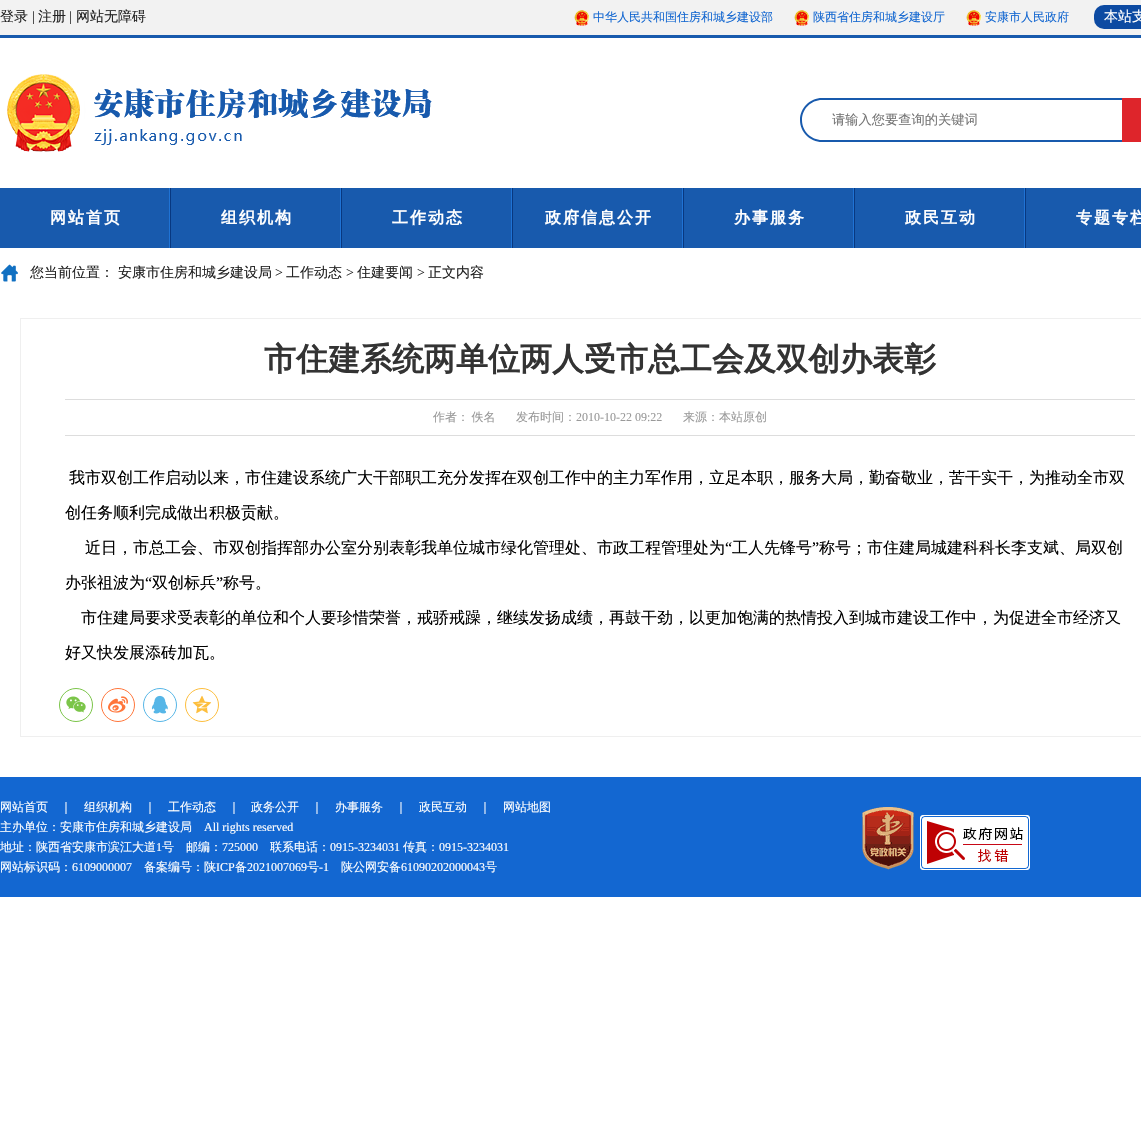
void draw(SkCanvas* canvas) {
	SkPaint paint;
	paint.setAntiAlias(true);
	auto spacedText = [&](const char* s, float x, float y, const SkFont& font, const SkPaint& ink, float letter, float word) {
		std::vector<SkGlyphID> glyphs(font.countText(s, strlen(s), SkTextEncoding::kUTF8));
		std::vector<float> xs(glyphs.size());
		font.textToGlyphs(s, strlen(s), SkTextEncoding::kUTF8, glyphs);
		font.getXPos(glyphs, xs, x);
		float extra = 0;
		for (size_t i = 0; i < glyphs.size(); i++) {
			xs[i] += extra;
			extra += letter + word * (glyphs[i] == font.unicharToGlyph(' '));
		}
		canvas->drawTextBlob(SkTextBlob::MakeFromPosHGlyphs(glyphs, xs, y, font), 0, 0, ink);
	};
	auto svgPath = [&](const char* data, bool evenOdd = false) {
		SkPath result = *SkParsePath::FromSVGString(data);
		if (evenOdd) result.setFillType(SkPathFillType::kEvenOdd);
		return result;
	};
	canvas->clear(0xffffffff);
	paint.setColor(0xfff2f2f2);
	canvas->drawRect(SkRect::MakeXYWH(0, 0, 1141, 35), paint);
	paint.setColor(0xff185aad);
	canvas->drawRect(SkRect::MakeXYWH(0, 35, 1141, 3), paint);
	SkFont f1(fontMgr->matchFamilyStyle("WenQuanYi Zen Hei", SkFontStyle(500, SkFontStyle::kNormal_Width, SkFontStyle::kUpright_Slant)), 14);
	f1.setSubpixel(true);
	paint.setColor(0xff222222);
	canvas->drawString("登录", 0, 21, f1, paint);
	SkFont f2(fontMgr->matchFamilyStyle("Liberation Serif", SkFontStyle::Normal()), 14);
	f2.setSubpixel(true);
	canvas->drawString("|", 32, 21, f2, paint);
	canvas->drawString("注册", 38, 21, f1, paint);
	canvas->drawString("|", 69, 21, f2, paint);
	canvas->drawString("网站无障碍", 76, 21, f1, paint);
	canvas->drawImageRect(SkImages::DeferredFromEncodedData(SkData::MakeFromFileName("img1.png")), SkRect::MakeXYWH(574, 10, 16, 16), SkSamplingOptions());
	SkFont f3(fontMgr->matchFamilyStyle("WenQuanYi Zen Hei", SkFontStyle(500, SkFontStyle::kNormal_Width, SkFontStyle::kUpright_Slant)), 12);
	f3.setSubpixel(true);
	paint.setColor(0xff1367d1);
	canvas->drawString("中华人民共和国住房和城乡建设部", 593, 21, f3, paint);
	canvas->drawImageRect(SkImages::DeferredFromEncodedData(SkData::MakeFromFileName("img1.png")), SkRect::MakeXYWH(794, 10, 16, 16), SkSamplingOptions());
	canvas->drawString("陕西省住房和城乡建设厅", 813, 21, f3, paint);
	canvas->drawImageRect(SkImages::DeferredFromEncodedData(SkData::MakeFromFileName("img1.png")), SkRect::MakeXYWH(966, 10, 16, 16), SkSamplingOptions());
	canvas->drawString("安康市人民政府", 985, 21, f3, paint);
	paint.setColor(0xff0c4aa2);
	canvas->drawRoundRect(SkRect::MakeXYWH(1094, 5, 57, 24), 10, 10, paint);
	paint.setColor(0xffffffff);
	canvas->drawString("本站支", 1104, 21, f1, paint);
	canvas->drawImageRect(SkImages::DeferredFromEncodedData(SkData::MakeFromFileName("img2.png")), SkRect::MakeXYWH(7, 74, 425, 78), SkSamplingOptions());
	paint.setColor(0xff185aad);
	canvas->drawPath(svgPath("M822 98H1122V142H822C810 142 800 132 800 120C800 108 810 98 822 98ZM822 100H1122V140H822C811 140 802 131 802 120C802 109 811 100 822 100Z", true), paint);
	SkFont f4(fontMgr->matchFamilyStyle("WenQuanYi Zen Hei", SkFontStyle(500, SkFontStyle::kNormal_Width, SkFontStyle::kUpright_Slant)), 13.25);
	f4.setSubpixel(true);
	paint.setColor(0xff757575);
	canvas->drawString("请输入您要查询的关键词", 832, 124, f4, paint);
	paint.setColor(0xffde252b);
	canvas->drawRect(SkRect::MakeXYWH(1122, 98, 19, 44), paint);
	paint.setColor(0xff185aad);
	canvas->drawRect(SkRect::MakeXYWH(0, 188, 1141, 60), paint);
	canvas->drawImageRect(SkImages::DeferredFromEncodedData(SkData::MakeFromFileName("img3.png")), SkRect::MakeXYWH(169, 188, 2, 60), SkSamplingOptions());
	SkFont f5(fontMgr->matchFamilyStyle("WenQuanYi Zen Hei", SkFontStyle::Bold()), 16);
	f5.setSubpixel(true);
	paint.setColor(0xffffffff);
	spacedText("网站首页", 50, 223, f5, paint, 2, 0);
	canvas->drawImageRect(SkImages::DeferredFromEncodedData(SkData::MakeFromFileName("img3.png")), SkRect::MakeXYWH(340, 188, 2, 60), SkSamplingOptions());
	spacedText("组织机构", 221, 223, f5, paint, 2, 0);
	canvas->drawImageRect(SkImages::DeferredFromEncodedData(SkData::MakeFromFileName("img3.png")), SkRect::MakeXYWH(511, 188, 2, 60), SkSamplingOptions());
	spacedText("工作动态", 392, 223, f5, paint, 2, 0);
	canvas->drawImageRect(SkImages::DeferredFromEncodedData(SkData::MakeFromFileName("img3.png")), SkRect::MakeXYWH(682, 188, 2, 60), SkSamplingOptions());
	spacedText("政府信息公开", 545, 223, f5, paint, 2, 0);
	canvas->drawImageRect(SkImages::DeferredFromEncodedData(SkData::MakeFromFileName("img3.png")), SkRect::MakeXYWH(853, 188, 2, 60), SkSamplingOptions());
	spacedText("办事服务", 734, 223, f5, paint, 2, 0);
	canvas->drawImageRect(SkImages::DeferredFromEncodedData(SkData::MakeFromFileName("img3.png")), SkRect::MakeXYWH(1024, 188, 2, 60), SkSamplingOptions());
	spacedText("政民互动", 905, 223, f5, paint, 2, 0);
	spacedText("专题专栏", 1076, 223, f5, paint, 2, 0);
	canvas->drawImageRect(SkImages::DeferredFromEncodedData(SkData::MakeFromFileName("img4.png")), SkRect::MakeXYWH(1, 264, 17, 18), SkSamplingOptions());
	paint.setColor(0xff222222);
	canvas->drawString("您当前位置：", 30, 277, f1, paint);
	canvas->drawString("安康市住房和城乡建设局", 118, 277, f1, paint);
	canvas->drawString(">", 275, 277, f2, paint);
	canvas->drawString("工作动态", 286, 277, f1, paint);
	canvas->drawString(">", 346, 277, f2, paint);
	canvas->drawString("住建要闻", 357, 277, f1, paint);
	canvas->drawString(">", 417, 277, f2, paint);
	canvas->drawString("正文内容", 428, 277, f1, paint);
	paint.setStroke(true);
	paint.setStrokeWidth(1);
	paint.setColor(0xffefefef);
	canvas->drawRect(SkRect::MakeXYWH(20.5, 318.5, 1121, 418), paint);
	SkFont f6(fontMgr->matchFamilyStyle("WenQuanYi Zen Hei", SkFontStyle::Bold()), 32);
	f6.setSubpixel(true);
	paint.setStroke(false);
	paint.setColor(0xff333333);
	canvas->drawString("市住建系统两单位两人受市总工会及双创办表彰", 264, 370, f6, paint);
	paint.setColor(0xffdddddd);
	canvas->drawRect(SkRect::MakeXYWH(65, 399, 1070, 1), paint);
	canvas->drawRect(SkRect::MakeXYWH(65, 435, 1070, 1), paint);
	paint.setColor(0xff999999);
	spacedText("作者： 佚名", 433, 421, f3, paint, 0, -1);
	canvas->drawString("发布时间：", 516, 421, f3, paint);
	SkFont f7(fontMgr->matchFamilyStyle("Liberation Serif", SkFontStyle::Normal()), 12);
	f7.setSubpixel(true);
	canvas->drawString("2010-10-22 09:22", 576, 421, f7, paint);
	canvas->drawString("来源：本站原创", 683, 421, f3, paint);
	SkFont f8(fontMgr->matchFamilyStyle("WenQuanYi Zen Hei", SkFontStyle(500, SkFontStyle::kNormal_Width, SkFontStyle::kUpright_Slant)), 16);
	f8.setSubpixel(true);
	paint.setColor(0xff000000);
	canvas->drawString("我市双创工作启动以来，市住建设系统广大干部职工充分发挥在双创工作中的主力军作用，立足本职，服务大局，勤奋敬业，苦干实干，为推动全市双", 69, 483, f8, paint);
	canvas->drawString("创任务顺利完成做出积极贡献。", 65, 518, f8, paint);
	canvas->drawString("近日，市总工会、市双创指挥部办公室分别表彰我单位城市绿化管理处、市政工程管理处为", 85, 553, f8, paint);
	SkFont f9(fontMgr->matchFamilyStyle("Liberation Serif", SkFontStyle::Normal()), 16);
	f9.setSubpixel(true);
	canvas->drawString("“", 725, 553, f9, paint);
	canvas->drawString("工人先锋号", 732, 553, f8, paint);
	canvas->drawString("”", 812, 553, f9, paint);
	canvas->drawString("称号；市住建局城建科科长李支斌、局双创", 819, 553, f8, paint);
	canvas->drawString("办张祖波为", 65, 588, f8, paint);
	canvas->drawString("“", 145, 588, f9, paint);
	canvas->drawString("双创标兵", 152, 588, f8, paint);
	canvas->drawString("”", 216, 588, f9, paint);
	canvas->drawString("称号。", 223, 588, f8, paint);
	canvas->drawString("市住建局要求受表彰的单位和个人要珍惜荣誉，戒骄戒躁，继续发扬成绩，再鼓干劲，以更加饱满的热情投入到城市建设工作中，为促进全市经济又", 81, 623, f8, paint);
	canvas->drawString("好又快发展添砖加瓦。", 65, 658, f8, paint);
	paint.setStroke(true);
	paint.setColor(0xff7bc549);
	canvas->drawCircle(76, 705, 16.5, paint);
	canvas->drawImageRect(SkImages::DeferredFromEncodedData(SkData::MakeFromFileName("img5.png")), SkRect::MakeXYWH(66, 696, 20, 17), SkSamplingOptions());
	paint.setColor(0xffff763b);
	canvas->drawCircle(118, 705, 16.5, paint);
	canvas->drawImageRect(SkImages::DeferredFromEncodedData(SkData::MakeFromFileName("img6.png")), SkRect::MakeXYWH(108, 696, 20, 17), SkSamplingOptions());
	paint.setColor(0xff56b6e7);
	canvas->drawCircle(160, 705, 16.5, paint);
	canvas->drawImageRect(SkImages::DeferredFromEncodedData(SkData::MakeFromFileName("img7.png")), SkRect::MakeXYWH(151, 695, 17, 19), SkSamplingOptions());
	paint.setColor(0xfffdbe3d);
	canvas->drawCircle(202, 705, 16.5, paint);
	canvas->drawImageRect(SkImages::DeferredFromEncodedData(SkData::MakeFromFileName("img8.png")), SkRect::MakeXYWH(192, 695, 20, 19), SkSamplingOptions());
	paint.setStroke(false);
	paint.setColor(0xff1367d1);
	canvas->drawRect(SkRect::MakeXYWH(0, 777, 1141, 120), paint);
	paint.setColor(0xffffffff);
	canvas->drawString("网站首页", 0, 811, f3, paint);
	canvas->drawString("｜", 60, 811, f3, paint);
	canvas->drawString("组织机构", 84, 811, f3, paint);
	canvas->drawString("｜", 144, 811, f3, paint);
	canvas->drawString("工作动态", 168, 811, f3, paint);
	canvas->drawString("｜", 228, 811, f3, paint);
	canvas->drawString("政务公开", 251, 811, f3, paint);
	canvas->drawString("｜", 311, 811, f3, paint);
	canvas->drawString("办事服务", 335, 811, f3, paint);
	canvas->drawString("｜", 395, 811, f3, paint);
	canvas->drawString("政民互动", 419, 811, f3, paint);
	canvas->drawString("｜", 479, 811, f3, paint);
	canvas->drawString("网站地图", 503, 811, f3, paint);
	canvas->drawString("主办单位：安康市住房和城乡建设局", 0, 831, f3, paint);
	canvas->drawString("All rights reserved", 204, 831, f7, paint);
	canvas->drawString("地址：陕西省安康市滨江大道", 0, 851, f3, paint);
	canvas->drawString("1", 156, 851, f7, paint);
	canvas->drawString("号　邮编：", 162, 851, f3, paint);
	canvas->drawString("725000", 222, 851, f7, paint);
	canvas->drawString("联系电话：", 270, 851, f3, paint);
	canvas->drawString("0915-3234031", 330, 851, f7, paint);
	canvas->drawString("传真：", 403, 851, f3, paint);
	canvas->drawString("0915-3234031", 439, 851, f7, paint);
	canvas->drawString("网站标识码：", 0, 871, f3, paint);
	canvas->drawString("6109000007", 72, 871, f7, paint);
	canvas->drawString("备案编号：陕", 144, 871, f3, paint);
	canvas->drawString("ICP", 216, 871, f7, paint);
	canvas->drawString("备", 235, 871, f3, paint);
	canvas->drawString("2021007069", 247, 871, f7, paint);
	canvas->drawString("号", 307, 871, f3, paint);
	canvas->drawString("-1", 319, 871, f7, paint);
	canvas->drawString("陕公网安备", 341, 871, f3, paint);
	canvas->drawString("61090202000043", 401, 871, f7, paint);
	canvas->drawString("号", 485, 871, f3, paint);
	canvas->drawImageRect(SkImages::DeferredFromEncodedData(SkData::MakeFromFileName("img9.png")), SkRect::MakeXYWH(862, 807, 52, 63), SkSamplingOptions());
	canvas->drawImageRect(SkImages::DeferredFromEncodedData(SkData::MakeFromFileName("img10.png")), SkRect::MakeXYWH(920, 815, 110, 55), SkSamplingOptions());
}
